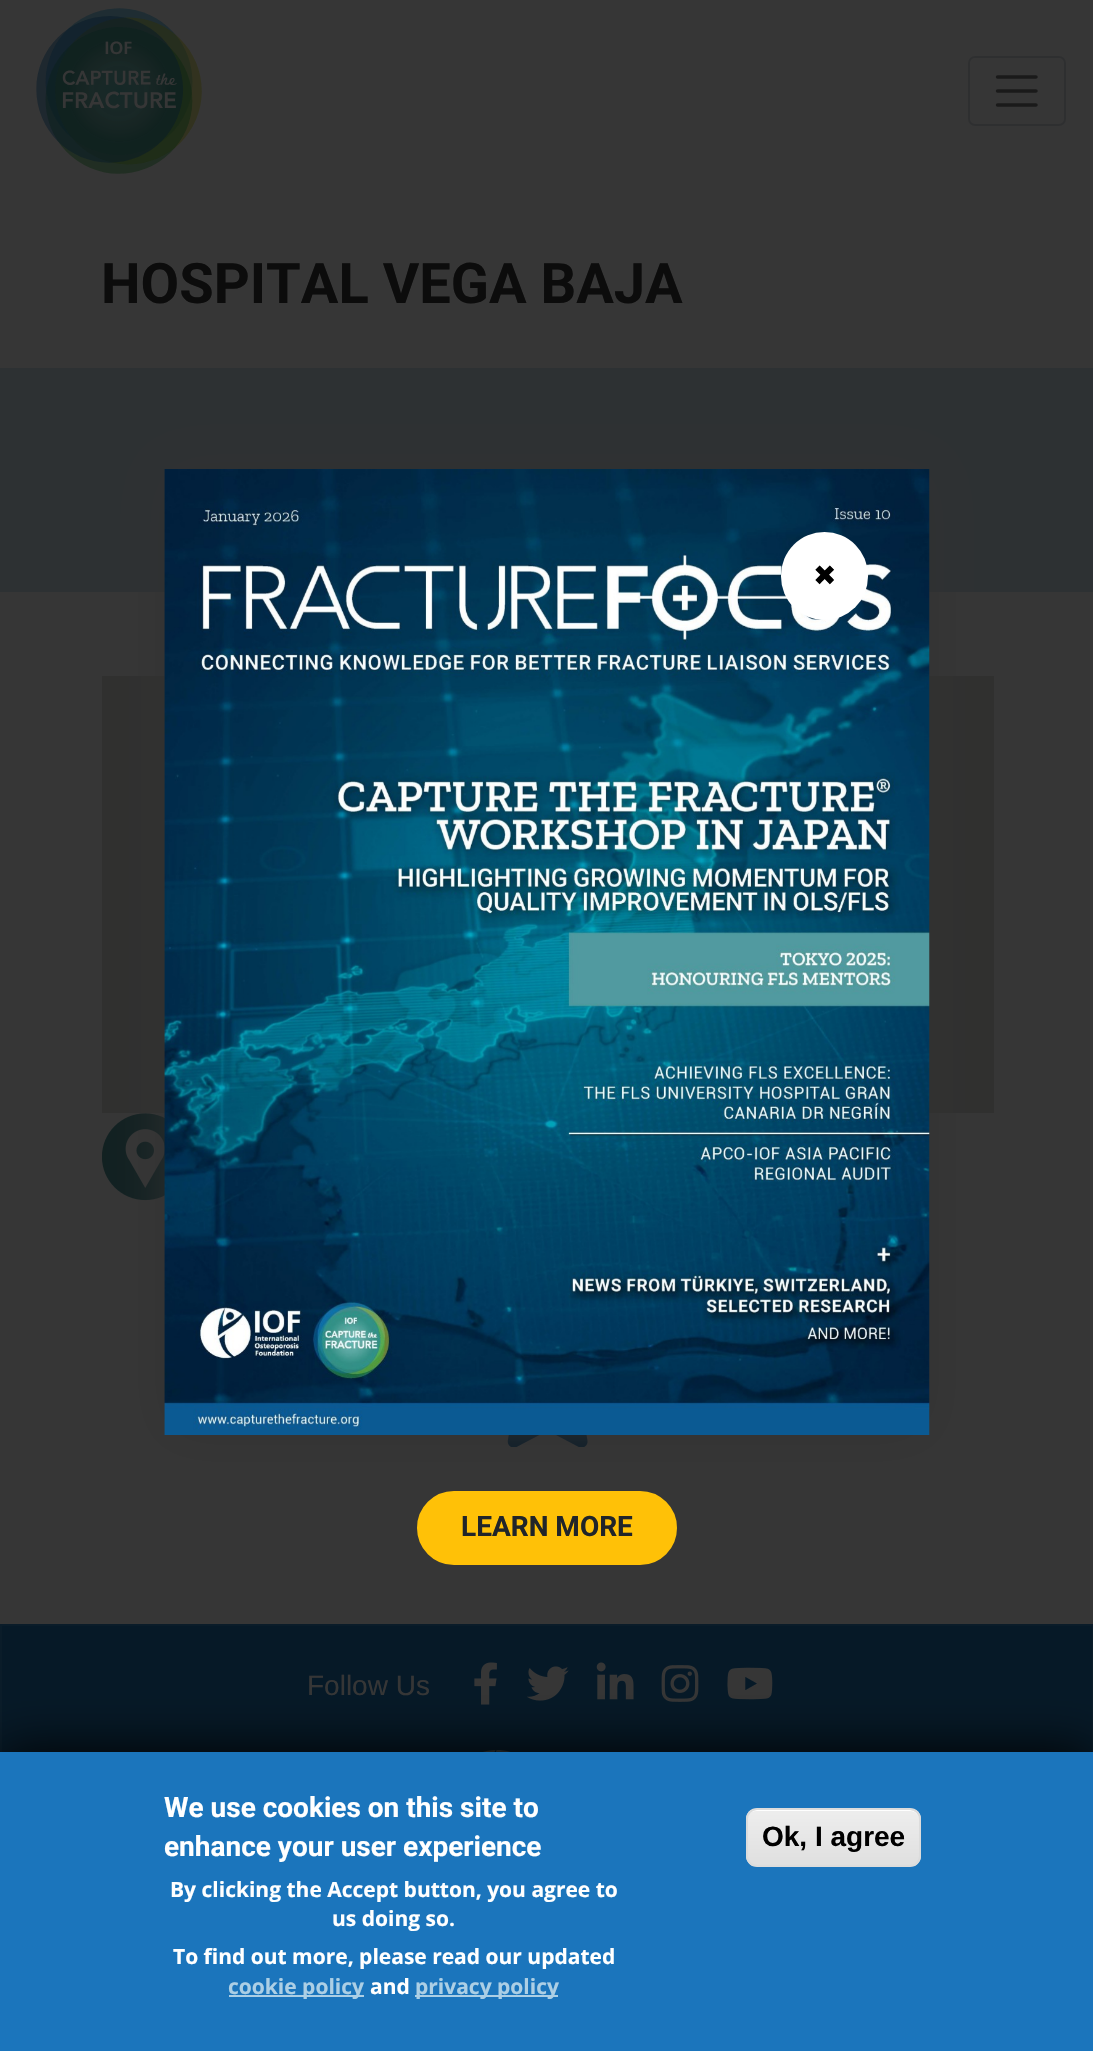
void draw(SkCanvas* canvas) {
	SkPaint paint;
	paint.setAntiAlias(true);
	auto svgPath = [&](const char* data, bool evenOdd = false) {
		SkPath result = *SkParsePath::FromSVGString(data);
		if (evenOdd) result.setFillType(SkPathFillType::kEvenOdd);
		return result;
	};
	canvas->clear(0xff363636);
	canvas->drawImageRect(SkImages::DeferredFromEncodedData(SkData::MakeFromFileName("img1.png")), SkRect::MakeXYWH(36, 8, 166, 166), SkSamplingOptions());
	paint.setStroke(true);
	paint.setStrokeWidth(2);
	paint.setColor(0xff2e2f30);
	canvas->drawRoundRect(SkRect::MakeXYWH(969, 57, 96, 68), 6, 6, paint);
	paint.setStrokeWidth(3.5);
	paint.setStrokeCap(SkPaint::kRound_Cap);
	paint.setColor(0xff1a1a1a);
	canvas->drawPath(svgPath("M997.5 77H1036M997.5 91H1036M997.5 105H1036"), paint);
	SkFont f1(fontMgr->matchFamilyStyle("Roboto", SkFontStyle::Bold()), 56);
	f1.setSubpixel(true);
	paint.setStroke(false);
	paint.setColor(0xff0c0c0c);
	canvas->drawString("HOSPITAL VEGA BAJA", 101, 303, f1, paint);
	paint.setColor(0xff2d3133);
	canvas->drawRect(SkRect::MakeXYWH(0, 368, 1093, 224), paint);
	paint.setColor(0xff30302f);
	canvas->drawRect(SkRect::MakeXYWH(102, 676, 892, 437), paint);
	canvas->drawImageRect(SkImages::DeferredFromEncodedData(SkData::MakeFromFileName("img2.png")), SkRect::MakeXYWH(102, 1113, 63, 88), SkSamplingOptions());
	canvas->drawImageRect(SkImages::DeferredFromEncodedData(SkData::MakeFromFileName("img3.png")), SkRect::MakeXYWH(507, 1435, 81, 12), SkSamplingOptions());
	paint.setColor(0xff061927);
	canvas->drawRect(SkRect::MakeXYWH(2, 1626, 1090, 126), paint);
	paint.setStroke(true);
	paint.setStrokeWidth(2);
	paint.setStrokeCap(SkPaint::kButt_Cap);
	paint.setColor(0xff0a1c29);
	canvas->drawRect(SkRect::MakeXYWH(1, 1625, 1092, 425), paint);
	SkFont f2(fontMgr->matchFamilyStyle("Liberation Sans", SkFontStyle::Normal()), 28);
	f2.setSubpixel(true);
	paint.setStroke(false);
	paint.setColor(0xff363636);
	canvas->drawString("Follow Us", 307, 1695, f2, paint);
	canvas->drawImageRect(SkImages::DeferredFromEncodedData(SkData::MakeFromFileName("img4.png")), SkRect::MakeXYWH(474, 1662, 23, 43), SkSamplingOptions());
	canvas->drawImageRect(SkImages::DeferredFromEncodedData(SkData::MakeFromFileName("img5.png")), SkRect::MakeXYWH(527, 1666, 42, 35), SkSamplingOptions());
	canvas->drawImageRect(SkImages::DeferredFromEncodedData(SkData::MakeFromFileName("img6.png")), SkRect::MakeXYWH(596, 1662, 38, 38), SkSamplingOptions());
	canvas->drawImageRect(SkImages::DeferredFromEncodedData(SkData::MakeFromFileName("img7.png")), SkRect::MakeXYWH(661, 1665, 38, 37), SkSamplingOptions());
	canvas->drawImageRect(SkImages::DeferredFromEncodedData(SkData::MakeFromFileName("img8.png")), SkRect::MakeXYWH(727, 1667, 46, 33), SkSamplingOptions());
	canvas->drawImageRect(SkImages::DeferredFromEncodedData(SkData::MakeFromFileName("img9.png")), SkRect::MakeXYWH(483, 1750, 28, 2), SkSamplingOptions());
	paint.setColor(0xff313131);
	paint.setMaskFilter(SkMaskFilter::MakeBlur(kNormal_SkBlurStyle, 26));
	canvas->drawRect(SkRect::MakeXYWH(165, 469, 764, 966), paint);
	paint.setMaskFilter(nullptr);
	canvas->drawImageRect(SkImages::DeferredFromEncodedData(SkData::MakeFromFileName("img10.png")), SkRect::MakeXYWH(164, 469, 766, 966), SkSamplingOptions());
	paint.setColor(0xffffffff);
	canvas->drawRoundRect(SkRect::MakeXYWH(781, 532, 87, 88), 43.5, 43.5, paint);
	SkFont f3(fontMgr->matchFamilyStyle("DejaVu Sans", SkFontStyle::Normal()), 28);
	f3.setSubpixel(true);
	paint.setColor(0xff000000);
	canvas->drawString("✖", 813, 585, f3, paint);
	paint.setColor(0xffffc107);
	canvas->drawRoundRect(SkRect::MakeXYWH(418, 1492, 258, 72), 36, 36, paint);
	paint.setStroke(true);
	canvas->drawRoundRect(SkRect::MakeXYWH(418, 1492, 258, 72), 36, 36, paint);
	SkFont f4(fontMgr->matchFamilyStyle("Roboto", SkFontStyle::Bold()), 28);
	f4.setSubpixel(true);
	paint.setStroke(false);
	paint.setColor(0xff212529);
	canvas->drawString("LEARN MORE", 461, 1536, f4, paint);
	paint.setColor(0xff000000);
	paint.setMaskFilter(SkMaskFilter::MakeBlur(kNormal_SkBlurStyle, 26));
	canvas->drawRect(SkRect::MakeXYWH(0, 1752, 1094, 299), paint);
	paint.setMaskFilter(nullptr);
	paint.setColor(0xff1b75bc);
	canvas->drawRect(SkRect::MakeXYWH(0, 1752, 1093, 299), paint);
	paint.setColor(0xffffffff);
	canvas->drawString("We use cookies on this site to", 164, 1817, f4, paint);
	canvas->drawString("enhance your user experience", 164, 1856, f4, paint);
	SkFont f5(fontMgr->matchFamilyStyle("Open Sans", SkFontStyle::Bold()), 21);
	f5.setSubpixel(true);
	canvas->drawString("By clicking the Accept button, you agree to", 170, 1897, f5, paint);
	canvas->drawString("us doing so.", 332, 1926, f5, paint);
	canvas->drawString("To find out more, please read our updated", 173, 1964, f5, paint);
	paint.setColor(0xffaccfe5);
	canvas->drawRect(SkRect::MakeXYWH(229, 1995, 135, 2), paint);
	canvas->drawString("cookie policy", 228, 1994, f5, paint);
	paint.setColor(0xffffffff);
	canvas->drawString("and", 370, 1994, f5, paint);
	paint.setColor(0xffaccfe5);
	canvas->drawRect(SkRect::MakeXYWH(415, 1995, 143, 2), paint);
	canvas->drawString("privacy policy", 415, 1994, f5, paint);
	canvas->save();
	canvas->clipPath(svgPath("M757 1808H910C916 1808 921 1813 921 1819V1856C921 1862 916 1867 910 1867H757C751 1867 746 1862 746 1856V1819C746 1813 751 1808 757 1808Z"), true);
	{
		const SkColor colors[] = {0xffededed, 0xffdfdfdf};
		const float stops[] = {0.05, 1};
		const SkPoint ends[] = {{833, 1810}, {833, 1866}};
		paint.setShader(SkGradientShader::MakeLinear(ends, colors, stops, 2, SkTileMode::kClamp));
		paint.setAlpha(255);
	}
	canvas->drawRect(SkRect::MakeXYWH(746, 1810, 175, 56), paint);
	canvas->restore();
	paint.setShader(nullptr);
	paint.setColor(0xffffffff);
	canvas->drawPath(svgPath("M756 1811H910C915 1811 919 1815 919 1820C919 1804 892 1810 884 1810H782C774 1810 747 1804 747 1820C747 1815 751 1811 756 1811Z"), paint);
	paint.setStroke(true);
	paint.setColor(0xffdcdcdc);
	canvas->drawRoundRect(SkRect::MakeXYWH(747, 1809, 173, 57), 10, 10, paint);
	SkFont f6(fontMgr->matchFamilyStyle("Liberation Sans", SkFontStyle::Bold()), 28);
	f6.setSubpixel(true);
	paint.setStroke(false);
	paint.setColor(0xff000000);
	canvas->drawString("Ok, I agree", 762, 1846, f6, paint);
}
